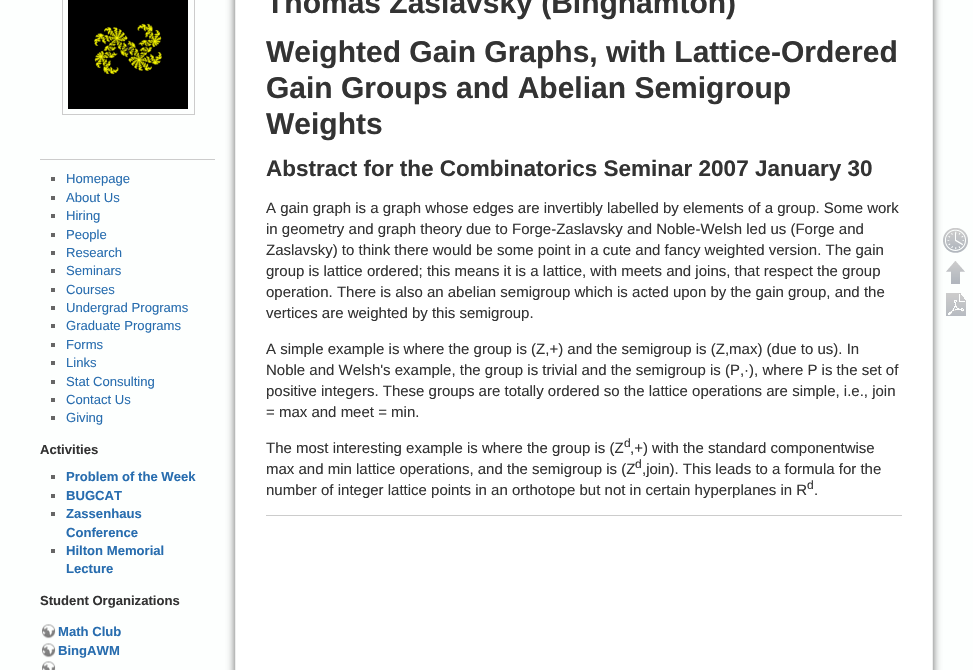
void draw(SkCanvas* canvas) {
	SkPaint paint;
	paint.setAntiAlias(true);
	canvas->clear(0xfffdfffe);
	paint.setStroke(true);
	paint.setStrokeWidth(1);
	paint.setColor(0xffcccccc);
	canvas->drawRect(SkRect::MakeXYWH(62.5, -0.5, 132, 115), paint);
	canvas->drawImageRect(SkImages::DeferredFromEncodedData(SkData::MakeFromFileName("img1.png")), SkRect::MakeXYWH(68, 0, 120, 109), SkSamplingOptions());
	paint.setStroke(false);
	canvas->drawRect(SkRect::MakeXYWH(40, 159, 175, 1), paint);
	paint.setColor(0xff666666);
	canvas->drawRect(SkRect::MakeXYWH(51, 177, 4, 4), paint);
	SkFont f1(fontMgr->matchFamilyStyle("Liberation Sans", SkFontStyle::Normal()), 13.1);
	f1.setSubpixel(true);
	paint.setColor(0xff286daf);
	canvas->drawString("Homepage", 66, 183, f1, paint);
	paint.setColor(0xff666666);
	canvas->drawRect(SkRect::MakeXYWH(51, 196, 4, 4), paint);
	paint.setColor(0xff286daf);
	canvas->drawString("About Us", 66, 202, f1, paint);
	paint.setColor(0xff666666);
	canvas->drawRect(SkRect::MakeXYWH(51, 214, 4, 4), paint);
	paint.setColor(0xff286daf);
	canvas->drawString("Hiring", 66, 220, f1, paint);
	paint.setColor(0xff666666);
	canvas->drawRect(SkRect::MakeXYWH(51, 233, 4, 4), paint);
	paint.setColor(0xff286daf);
	canvas->drawString("People", 66, 239, f1, paint);
	paint.setColor(0xff666666);
	canvas->drawRect(SkRect::MakeXYWH(51, 251, 4, 4), paint);
	paint.setColor(0xff286daf);
	canvas->drawString("Research", 66, 257, f1, paint);
	paint.setColor(0xff666666);
	canvas->drawRect(SkRect::MakeXYWH(51, 269, 4, 4), paint);
	paint.setColor(0xff286daf);
	canvas->drawString("Seminars", 66, 275, f1, paint);
	paint.setColor(0xff666666);
	canvas->drawRect(SkRect::MakeXYWH(51, 288, 4, 4), paint);
	paint.setColor(0xff286daf);
	canvas->drawString("Courses", 66, 294, f1, paint);
	paint.setColor(0xff666666);
	canvas->drawRect(SkRect::MakeXYWH(51, 306, 4, 4), paint);
	paint.setColor(0xff286daf);
	canvas->drawString("Undergrad Programs", 66, 312, f1, paint);
	paint.setColor(0xff666666);
	canvas->drawRect(SkRect::MakeXYWH(51, 324, 4, 4), paint);
	paint.setColor(0xff286daf);
	canvas->drawString("Graduate Programs", 66, 330, f1, paint);
	paint.setColor(0xff666666);
	canvas->drawRect(SkRect::MakeXYWH(51, 343, 4, 4), paint);
	paint.setColor(0xff286daf);
	canvas->drawString("Forms", 66, 349, f1, paint);
	paint.setColor(0xff666666);
	canvas->drawRect(SkRect::MakeXYWH(51, 361, 4, 4), paint);
	paint.setColor(0xff286daf);
	canvas->drawString("Links", 66, 367, f1, paint);
	paint.setColor(0xff666666);
	canvas->drawRect(SkRect::MakeXYWH(51, 380, 4, 4), paint);
	paint.setColor(0xff286daf);
	canvas->drawString("Stat Consulting", 66, 386, f1, paint);
	paint.setColor(0xff666666);
	canvas->drawRect(SkRect::MakeXYWH(51, 398, 4, 4), paint);
	paint.setColor(0xff286daf);
	canvas->drawString("Contact Us", 66, 404, f1, paint);
	paint.setColor(0xff666666);
	canvas->drawRect(SkRect::MakeXYWH(51, 416, 4, 4), paint);
	paint.setColor(0xff286daf);
	canvas->drawString("Giving", 66, 422, f1, paint);
	SkFont f2(fontMgr->matchFamilyStyle("Liberation Sans", SkFontStyle::Bold()), 13.1);
	f2.setSubpixel(true);
	paint.setColor(0xff333333);
	canvas->drawString("Activities", 40, 454, f2, paint);
	paint.setColor(0xff666666);
	canvas->drawRect(SkRect::MakeXYWH(51, 475, 4, 4), paint);
	paint.setColor(0xff286daf);
	canvas->drawString("Problem of the Week", 66, 481, f2, paint);
	paint.setColor(0xff666666);
	canvas->drawRect(SkRect::MakeXYWH(51, 494, 4, 4), paint);
	paint.setColor(0xff286daf);
	canvas->drawString("BUGCAT", 66, 500, f2, paint);
	paint.setColor(0xff666666);
	canvas->drawRect(SkRect::MakeXYWH(51, 512, 4, 4), paint);
	paint.setColor(0xff286daf);
	canvas->drawString("Zassenhaus", 66, 518, f2, paint);
	canvas->drawString("Conference", 66, 537, f2, paint);
	paint.setColor(0xff666666);
	canvas->drawRect(SkRect::MakeXYWH(51, 549, 4, 4), paint);
	paint.setColor(0xff286daf);
	canvas->drawString("Hilton Memorial", 66, 555, f2, paint);
	canvas->drawString("Lecture", 66, 573, f2, paint);
	paint.setColor(0xff333333);
	canvas->drawString("Student Organizations", 40, 605, f2, paint);
	canvas->drawImageRect(SkImages::DeferredFromEncodedData(SkData::MakeFromFileName("img2.png")), SkRect::MakeXYWH(42, 624, 14, 15), SkSamplingOptions());
	paint.setColor(0xff286daf);
	canvas->drawString("Math Club", 58, 636, f2, paint);
	canvas->drawImageRect(SkImages::DeferredFromEncodedData(SkData::MakeFromFileName("img2.png")), SkRect::MakeXYWH(42, 643, 14, 15), SkSamplingOptions());
	canvas->drawString("BingAWM", 58, 655, f2, paint);
	canvas->drawImageRect(SkImages::DeferredFromEncodedData(SkData::MakeFromFileName("img3.png")), SkRect::MakeXYWH(42, 661, 14, 9), SkSamplingOptions());
	paint.setColor(0xff666666);
	paint.setMaskFilter(SkMaskFilter::MakeBlur(kNormal_SkBlurStyle, 4));
	canvas->drawRoundRect(SkRect::MakeXYWH(235, -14, 698, 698), 2, 2, paint);
	paint.setMaskFilter(nullptr);
	paint.setColor(0xffffffff);
	canvas->drawRect(SkRect::MakeXYWH(235.5, -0.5, 697, 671), paint);
	paint.setStroke(true);
	paint.setColor(0xffeeeeee);
	canvas->drawRect(SkRect::MakeXYWH(235.5, -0.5, 697, 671), paint);
	SkFont f3(fontMgr->matchFamilyStyle("Liberation Sans", SkFontStyle::Bold()), 30);
	f3.setSubpixel(true);
	paint.setStroke(false);
	paint.setColor(0xff333333);
	canvas->drawString("Thomas Zaslavsky (Binghamton)", 266, 13, f3, paint);
	canvas->drawString("Weighted Gain Graphs, with Lattice-Ordered", 266, 62, f3, paint);
	canvas->drawString("Gain Groups and Abelian Semigroup", 266, 98, f3, paint);
	canvas->drawString("Weights", 266, 134, f3, paint);
	SkFont f4(fontMgr->matchFamilyStyle("Liberation Sans", SkFontStyle::Bold()), 22.5);
	f4.setSubpixel(true);
	canvas->drawString("Abstract for the Combinatorics Seminar 2007 January 30", 266, 176, f4, paint);
	SkFont f5(fontMgr->matchFamilyStyle("Liberation Sans", SkFontStyle::Normal()), 15);
	f5.setSubpixel(true);
	canvas->drawString("A gain graph is a graph whose edges are invertibly labelled by elements of a group. Some work", 266, 213, f5, paint);
	canvas->drawString("in geometry and graph theory due to Forge-Zaslavsky and Noble-Welsh led us (Forge and", 266, 234, f5, paint);
	canvas->drawString("Zaslavsky) to think there would be some point in a cute and fancy weighted version. The gain", 266, 255, f5, paint);
	canvas->drawString("group is lattice ordered; this means it is a lattice, with meets and joins, that respect the group", 266, 276, f5, paint);
	canvas->drawString("operation. There is also an abelian semigroup which is acted upon by the gain group, and the", 266, 297, f5, paint);
	canvas->drawString("vertices are weighted by this semigroup.", 266, 318, f5, paint);
	canvas->drawString("A simple example is where the group is (Z,+) and the semigroup is (Z,max) (due to us). In", 266, 354, f5, paint);
	canvas->drawString("Noble and Welsh's example, the group is trivial and the semigroup is (P,·), where P is the set of", 266, 375, f5, paint);
	canvas->drawString("positive integers. These groups are totally ordered so the lattice operations are simple, i.e., join", 266, 396, f5, paint);
	canvas->drawString("= max and meet = min.", 266, 417, f5, paint);
	canvas->drawString("The most interesting example is where the group is (Z", 266, 453, f5, paint);
	SkFont f6(fontMgr->matchFamilyStyle("Liberation Sans", SkFontStyle::Normal()), 12);
	f6.setSubpixel(true);
	canvas->drawString("d", 624, 447, f6, paint);
	canvas->drawString(",+) with the standard componentwise", 630, 453, f5, paint);
	canvas->drawString("max and min lattice operations, and the semigroup is (Z", 266, 474, f5, paint);
	canvas->drawString("d", 635, 468, f6, paint);
	canvas->drawString(",join). This leads to a formula for the", 642, 474, f5, paint);
	canvas->drawString("number of integer lattice points in an orthotope but not in certain hyperplanes in R", 266, 495, f5, paint);
	canvas->drawString("d", 807, 489, f6, paint);
	canvas->drawString(".", 814, 495, f5, paint);
	paint.setColor(0xffcccccc);
	canvas->drawRect(SkRect::MakeXYWH(266, 515, 636, 1), paint);
	canvas->drawImageRect(SkImages::DeferredFromEncodedData(SkData::MakeFromFileName("img4.png")), SkRect::MakeXYWH(943, 228, 25, 25), SkSamplingOptions());
	canvas->drawImageRect(SkImages::DeferredFromEncodedData(SkData::MakeFromFileName("img5.png")), SkRect::MakeXYWH(946, 261, 19, 23), SkSamplingOptions());
	canvas->drawImageRect(SkImages::DeferredFromEncodedData(SkData::MakeFromFileName("img6.png")), SkRect::MakeXYWH(946, 293, 20, 23), SkSamplingOptions());
}
